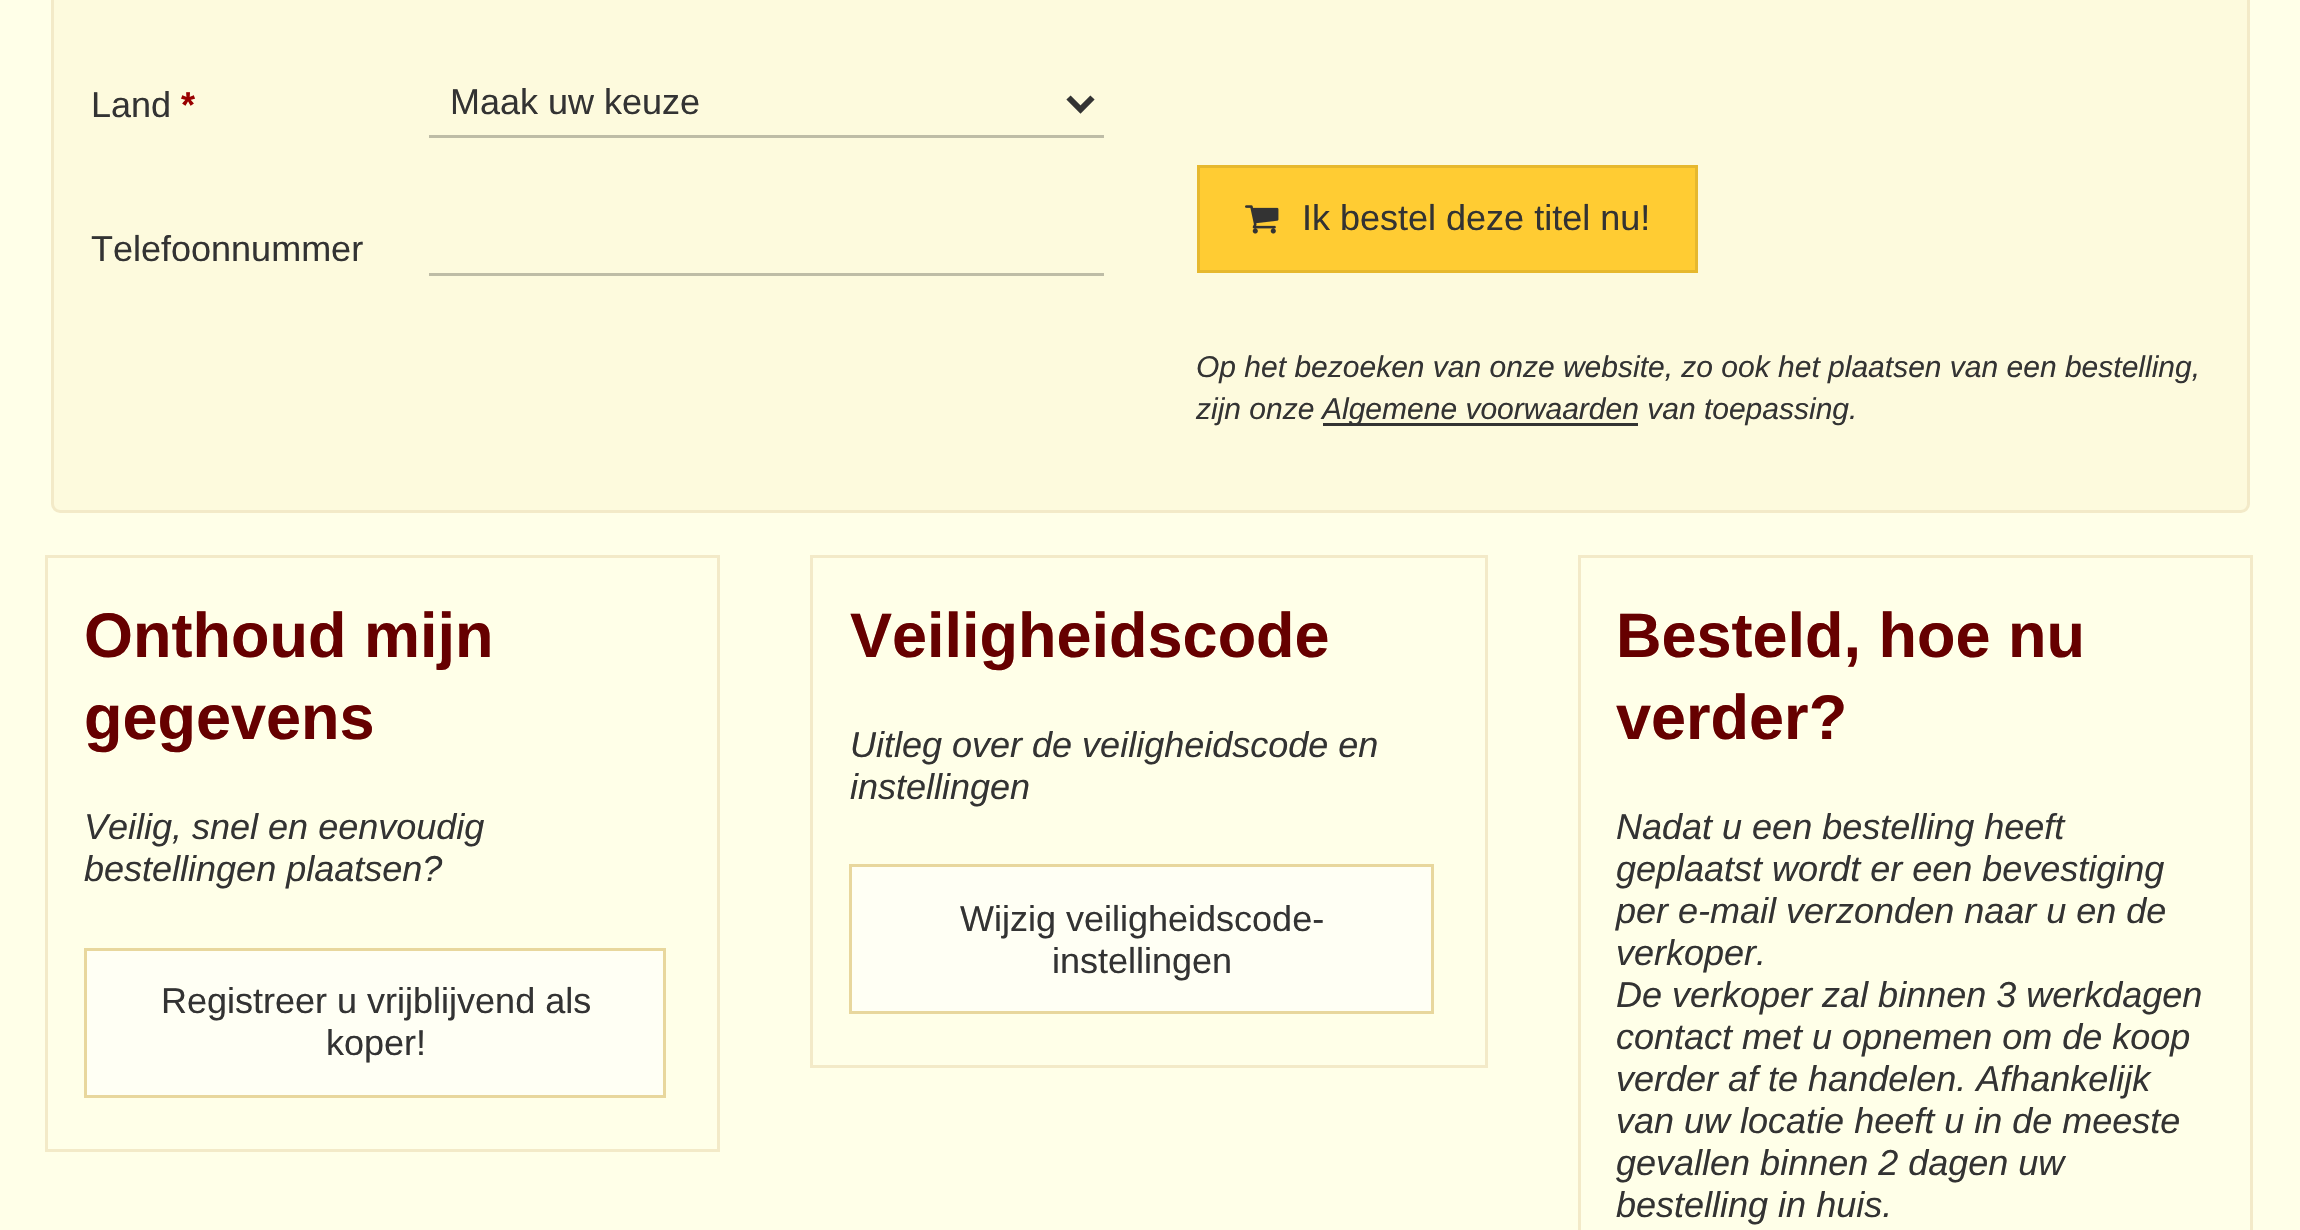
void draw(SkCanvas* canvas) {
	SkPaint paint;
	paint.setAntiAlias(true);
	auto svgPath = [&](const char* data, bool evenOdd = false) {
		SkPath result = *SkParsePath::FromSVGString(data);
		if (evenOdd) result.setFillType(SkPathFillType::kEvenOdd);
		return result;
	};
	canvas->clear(0xffffffe8);
	paint.setColor(0xfffdfadd);
	canvas->drawPath(svgPath("M52.5-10.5H2248.5V504C2248.5 508 2245 511.5 2241 511.5H60C56 511.5 52.5 508 52.5 504Z"), paint);
	paint.setStroke(true);
	paint.setStrokeWidth(3);
	paint.setColor(0xfff3eac8);
	canvas->drawPath(svgPath("M52.5-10.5H2248.5V504C2248.5 508 2245 511.5 2241 511.5H60C56 511.5 52.5 508 52.5 504Z"), paint);
	SkFont f1(fontMgr->matchFamilyStyle("Liberation Sans", SkFontStyle::Normal()), 36);
	f1.setSubpixel(true);
	paint.setStroke(false);
	paint.setColor(0xff333333);
	canvas->drawString("Land", 91, 117, f1, paint);
	SkFont f2(fontMgr->matchFamilyStyle("Liberation Sans", SkFontStyle::Bold()), 36);
	f2.setSubpixel(true);
	paint.setColor(0xff990000);
	canvas->drawString("*", 181, 117, f2, paint);
	paint.setColor(0xffbebca6);
	canvas->drawRect(SkRect::MakeXYWH(429, 135, 675, 3), paint);
	paint.setStroke(true);
	paint.setStrokeWidth(6);
	paint.setColor(0xff333333);
	canvas->drawPath(svgPath("M1068.5 97.5L1080.5 109.5L1092.5 97.5"), paint);
	paint.setStroke(false);
	canvas->drawString("Maak uw keuze", 450, 114, f1, paint);
	canvas->drawString("Telefoonnummer", 91, 261, f1, paint);
	paint.setColor(0xffbebca6);
	canvas->drawRect(SkRect::MakeXYWH(429, 273, 675, 3), paint);
	paint.setColor(0xffffcc33);
	canvas->drawRect(SkRect::MakeXYWH(1198.5, 166.5, 498, 105), paint);
	paint.setStroke(true);
	paint.setStrokeWidth(3);
	paint.setColor(0xffe6b82e);
	canvas->drawRect(SkRect::MakeXYWH(1198.5, 166.5, 498, 105), paint);
	canvas->drawImageRect(SkImages::DeferredFromEncodedData(SkData::MakeFromFileName("img1.png")), SkRect::MakeXYWH(1245, 205, 34, 29), SkSamplingOptions());
	paint.setStroke(false);
	paint.setColor(0xff333333);
	canvas->drawString("Ik bestel deze titel nu!", 1302, 230, f1, paint);
	SkFont f3(fontMgr->matchFamilyStyle("Liberation Sans", SkFontStyle::Italic()), 30);
	f3.setSubpixel(true);
	canvas->drawString("Op het bezoeken van onze website, zo ook het plaatsen van een bestelling,", 1196, 377, f3, paint);
	canvas->drawString("zijn onze", 1196, 419, f3, paint);
	canvas->drawRect(SkRect::MakeXYWH(1323, 423, 315, 3), paint);
	canvas->drawString("Algemene voorwaarden van toepassing.", 1322, 419, f3, paint);
	paint.setStroke(true);
	paint.setColor(0xfff3eac8);
	canvas->drawRect(SkRect::MakeXYWH(46.5, 556.5, 672, 594), paint);
	SkFont f4(fontMgr->matchFamilyStyle("Liberation Sans", SkFontStyle::Bold()), 63);
	f4.setSubpixel(true);
	paint.setStroke(false);
	paint.setColor(0xff660000);
	canvas->drawString("Onthoud mijn", 84, 657, f4, paint);
	canvas->drawString("gegevens", 84, 739, f4, paint);
	SkFont f5(fontMgr->matchFamilyStyle("Liberation Sans", SkFontStyle::Italic()), 36);
	f5.setSubpixel(true);
	paint.setColor(0xff333333);
	canvas->drawString("Veilig, snel en eenvoudig", 84, 839, f5, paint);
	canvas->drawString("bestellingen plaatsen?", 84, 881, f5, paint);
	paint.setColor(0xfffffff4);
	canvas->drawRect(SkRect::MakeXYWH(85.5, 949.5, 579, 147), paint);
	paint.setStroke(true);
	paint.setColor(0xffe8d79d);
	canvas->drawRect(SkRect::MakeXYWH(85.5, 949.5, 579, 147), paint);
	paint.setStroke(false);
	paint.setColor(0xff333333);
	canvas->drawString("Registreer u vrijblijvend als", 161, 1013, f1, paint);
	canvas->drawString("koper!", 326, 1055, f1, paint);
	paint.setStroke(true);
	paint.setColor(0xfff3eac8);
	canvas->drawRect(SkRect::MakeXYWH(811.5, 556.5, 675, 510), paint);
	paint.setStroke(false);
	paint.setColor(0xff660000);
	canvas->drawString("Veiligheidscode", 850, 657, f4, paint);
	paint.setColor(0xff333333);
	canvas->drawString("Uitleg over de veiligheidscode en", 850, 757, f5, paint);
	canvas->drawString("instellingen", 850, 799, f5, paint);
	paint.setColor(0xfffffff4);
	canvas->drawRect(SkRect::MakeXYWH(850.5, 865.5, 582, 147), paint);
	paint.setStroke(true);
	paint.setColor(0xffe8d79d);
	canvas->drawRect(SkRect::MakeXYWH(850.5, 865.5, 582, 147), paint);
	paint.setStroke(false);
	paint.setColor(0xff333333);
	canvas->drawString("Wijzig veiligheidscode-", 960, 931, f1, paint);
	canvas->drawString("instellingen", 1052, 973, f1, paint);
	paint.setStroke(true);
	paint.setColor(0xfff3eac8);
	canvas->drawRect(SkRect::MakeXYWH(1579.5, 556.5, 672, 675), paint);
	paint.setStroke(false);
	paint.setColor(0xff660000);
	canvas->drawString("Besteld, hoe nu", 1616, 657, f4, paint);
	canvas->drawString("verder?", 1616, 739, f4, paint);
	paint.setColor(0xff333333);
	canvas->drawString("Nadat u een bestelling heeft", 1616, 839, f5, paint);
	canvas->drawString("geplaatst wordt er een bevestiging", 1616, 881, f5, paint);
	canvas->drawString("per e-mail verzonden naar u en de", 1616, 923, f5, paint);
	canvas->drawString("verkoper.", 1616, 965, f5, paint);
	canvas->drawString("De verkoper zal binnen 3 werkdagen", 1616, 1007, f5, paint);
	canvas->drawString("contact met u opnemen om de koop", 1616, 1049, f5, paint);
	canvas->drawString("verder af te handelen. Afhankelijk", 1616, 1091, f5, paint);
	canvas->drawString("van uw locatie heeft u in de meeste", 1616, 1133, f5, paint);
	canvas->drawString("gevallen binnen 2 dagen uw", 1616, 1175, f5, paint);
	canvas->drawString("bestelling in huis.", 1616, 1217, f5, paint);
}
